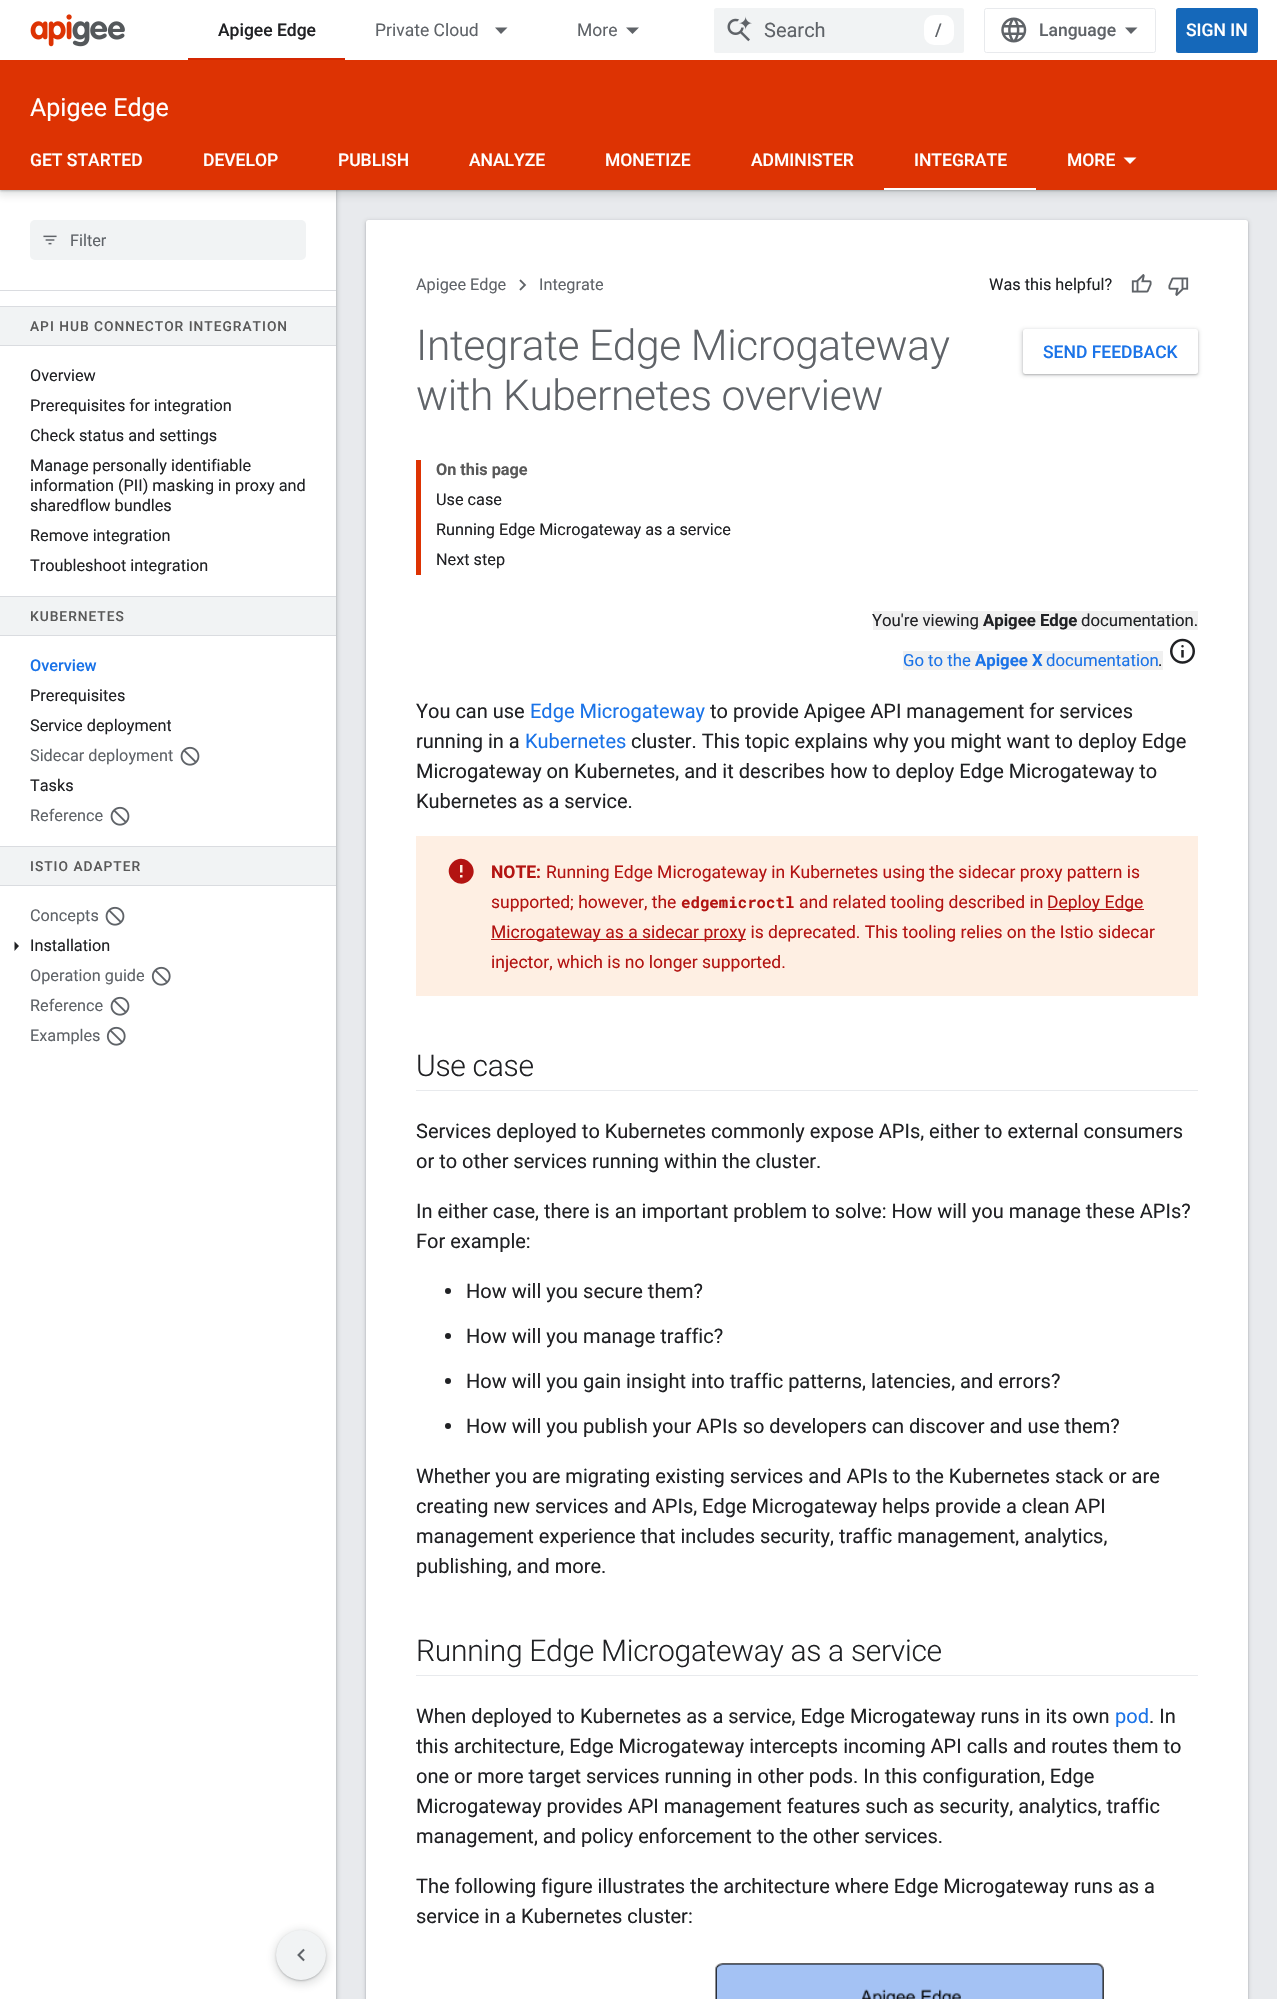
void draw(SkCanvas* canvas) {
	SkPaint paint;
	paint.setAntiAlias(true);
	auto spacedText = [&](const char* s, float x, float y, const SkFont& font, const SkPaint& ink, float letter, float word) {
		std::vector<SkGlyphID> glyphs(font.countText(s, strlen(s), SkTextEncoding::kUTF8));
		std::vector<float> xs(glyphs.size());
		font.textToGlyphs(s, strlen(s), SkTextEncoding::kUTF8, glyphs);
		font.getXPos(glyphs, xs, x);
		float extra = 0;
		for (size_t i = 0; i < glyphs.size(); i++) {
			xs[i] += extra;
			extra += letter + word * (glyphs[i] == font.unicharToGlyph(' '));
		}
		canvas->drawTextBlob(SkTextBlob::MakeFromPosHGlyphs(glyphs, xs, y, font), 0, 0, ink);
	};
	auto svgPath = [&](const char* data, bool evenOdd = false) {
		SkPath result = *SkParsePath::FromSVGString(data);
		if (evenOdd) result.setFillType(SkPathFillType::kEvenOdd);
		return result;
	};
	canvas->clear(0xffe8eaed);
	paint.setColor(0x263c4043);
	paint.setMaskFilter(SkMaskFilter::MakeBlur(kNormal_SkBlurStyle, 2));
	canvas->drawRect(SkRect::MakeXYWH(-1, 0, 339, 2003), paint);
	paint.setMaskFilter(nullptr);
	paint.setColor(0x4d3c4043);
	paint.setMaskFilter(SkMaskFilter::MakeBlur(kNormal_SkBlurStyle, 1));
	canvas->drawRect(SkRect::MakeXYWH(0, 1, 336, 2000), paint);
	paint.setMaskFilter(nullptr);
	paint.setColor(0xffffffff);
	canvas->drawRect(SkRect::MakeXYWH(0, 190, 336, 1809), paint);
	paint.setColor(0x263c4043);
	paint.setMaskFilter(SkMaskFilter::MakeBlur(kNormal_SkBlurStyle, 4));
	canvas->drawRect(SkRect::MakeXYWH(-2, 60, 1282, 135), paint);
	paint.setMaskFilter(nullptr);
	paint.setColor(0x4d3c4043);
	paint.setMaskFilter(SkMaskFilter::MakeBlur(kNormal_SkBlurStyle, 1));
	canvas->drawRect(SkRect::MakeXYWH(0, 61, 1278, 130), paint);
	paint.setMaskFilter(nullptr);
	paint.setColor(0xffffffff);
	canvas->drawRect(SkRect::MakeXYWH(0, 0, 1277, 60), paint);
	canvas->drawImageRect(SkImages::DeferredFromEncodedData(SkData::MakeFromFileName("img1.png")), SkRect::MakeXYWH(30, 14, 95, 33), SkSamplingOptions());
	SkFont f1(fontMgr->matchFamilyStyle("Roboto", SkFontStyle(500, SkFontStyle::kNormal_Width, SkFontStyle::kUpright_Slant)), 17.5);
	f1.setSubpixel(true);
	paint.setColor(0xff202124);
	canvas->drawString("Apigee Edge", 218, 36, f1, paint);
	paint.setColor(0xffd42702);
	canvas->drawRect(SkRect::MakeXYWH(188, 58, 157, 2), paint);
	SkFont f2(fontMgr->matchFamilyStyle("Roboto", SkFontStyle::Normal()), 17.5);
	f2.setSubpixel(true);
	paint.setColor(0xff5f6368);
	canvas->drawString("Private Cloud", 375, 36, f2, paint);
	canvas->drawPath(svgPath("M495 27.5H507.5L501 34Z"), paint);
	canvas->drawString("More", 577, 36, f2, paint);
	canvas->drawPath(svgPath("M626 27.5H639L632.5 34Z"), paint);
	paint.setColor(0xfff1f3f4);
	canvas->drawRoundRect(SkRect::MakeXYWH(714, 8, 250, 45), 2.5, 2.5, paint);
	canvas->drawImageRect(SkImages::DeferredFromEncodedData(SkData::MakeFromFileName("img2.png")), SkRect::MakeXYWH(727, 16, 25, 26), SkSamplingOptions());
	SkFont f3(fontMgr->matchFamilyStyle("Roboto", SkFontStyle::Normal()), 20);
	f3.setSubpixel(true);
	paint.setColor(0xff5f6368);
	canvas->drawString("Search", 764, 37, f3, paint);
	paint.setColor(0xffffffff);
	canvas->drawRoundRect(SkRect::MakeXYWH(924, 15, 30, 30), 10, 10, paint);
	paint.setColor(0xff5f6368);
	canvas->drawString("/", 935, 36, f1, paint);
	paint.setStroke(true);
	paint.setStrokeWidth(1);
	paint.setColor(0xffe8eaed);
	canvas->drawRoundRect(SkRect::MakeXYWH(984.5, 8.5, 171, 44), 2, 2, paint);
	canvas->drawImageRect(SkImages::DeferredFromEncodedData(SkData::MakeFromFileName("img3.png")), SkRect::MakeXYWH(1001, 17, 26, 26), SkSamplingOptions());
	paint.setStroke(false);
	paint.setColor(0xff5f6368);
	canvas->drawString("Language", 1039, 36, f1, paint);
	canvas->drawPath(svgPath("M1131 34L1125 27.5H1137.5Z"), paint);
	paint.setColor(0xff1568ba);
	canvas->drawRoundRect(SkRect::MakeXYWH(1176, 8, 82, 45), 2.5, 2.5, paint);
	paint.setColor(0xffffffff);
	canvas->drawString("SIGN IN", 1186, 36, f1, paint);
	paint.setColor(0xffdd3303);
	canvas->drawRect(SkRect::MakeXYWH(0, 60, 1277, 130), paint);
	SkFont f4(fontMgr->matchFamilyStyle("Roboto", SkFontStyle::Normal()), 25);
	f4.setSubpixel(true);
	paint.setColor(0xffffffff);
	canvas->drawString("Apigee Edge", 30, 116, f4, paint);
	canvas->drawString("GET STARTED", 30, 166, f1, paint);
	canvas->drawString("DEVELOP", 203, 166, f1, paint);
	canvas->drawString("PUBLISH", 338, 166, f1, paint);
	canvas->drawString("ANALYZE", 469, 166, f1, paint);
	canvas->drawString("MONETIZE", 605, 166, f1, paint);
	canvas->drawString("ADMINISTER", 751, 166, f1, paint);
	canvas->drawString("INTEGRATE", 914, 166, f1, paint);
	canvas->drawRect(SkRect::MakeXYWH(884, 188, 152, 2), paint);
	canvas->drawString("MORE", 1067, 166, f1, paint);
	canvas->drawPath(svgPath("M1123.5 157.5H1136.5L1130 164Z"), paint);
	paint.setColor(0xffdadce0);
	canvas->drawRect(SkRect::MakeXYWH(0, 290, 336, 1), paint);
	paint.setColor(0xfff1f3f4);
	canvas->drawRoundRect(SkRect::MakeXYWH(30, 220, 276, 40), 5, 5, paint);
	canvas->drawImageRect(SkImages::DeferredFromEncodedData(SkData::MakeFromFileName("img4.png")), SkRect::MakeXYWH(43, 235, 14, 10), SkSamplingOptions());
	SkFont f5(fontMgr->matchFamilyStyle("Roboto", SkFontStyle::Normal()), 16.25);
	f5.setSubpixel(true);
	paint.setColor(0xff5f6368);
	canvas->drawString("Filter", 70, 246, f5, paint);
	paint.setColor(0xfff1f3f4);
	canvas->drawRect(SkRect::MakeXYWH(0, 307, 336, 38), paint);
	paint.setColor(0xffdadce0);
	canvas->drawRect(SkRect::MakeXYWH(0, 306, 336, 1), paint);
	canvas->drawRect(SkRect::MakeXYWH(0, 345, 336, 1), paint);
	SkFont f6(fontMgr->matchFamilyStyle("Roboto", SkFontStyle(500, SkFontStyle::kNormal_Width, SkFontStyle::kUpright_Slant)), 13.75);
	f6.setSubpixel(true);
	paint.setColor(0xff595959);
	spacedText("API HUB CONNECTOR INTEGRATION", 30, 331, f6, paint, 1, 0);
	paint.setColor(0xff202124);
	canvas->drawString("Overview", 30, 381, f5, paint);
	canvas->drawString("Prerequisites for integration", 30, 411, f5, paint);
	canvas->drawString("Check status and settings", 30, 441, f5, paint);
	canvas->drawString("Manage personally identifiable", 30, 471, f5, paint);
	canvas->drawString("information (PII) masking in proxy and", 30, 491, f5, paint);
	canvas->drawString("sharedflow bundles", 30, 511, f5, paint);
	canvas->drawString("Remove integration", 30, 541, f5, paint);
	canvas->drawString("Troubleshoot integration", 30, 571, f5, paint);
	paint.setColor(0xfff1f3f4);
	canvas->drawRect(SkRect::MakeXYWH(0, 597, 336, 38), paint);
	paint.setColor(0xffdadce0);
	canvas->drawRect(SkRect::MakeXYWH(0, 596, 336, 1), paint);
	canvas->drawRect(SkRect::MakeXYWH(0, 635, 336, 1), paint);
	paint.setColor(0xff595959);
	spacedText("KUBERNETES", 30, 621, f6, paint, 1, 0);
	SkFont f7(fontMgr->matchFamilyStyle("Roboto", SkFontStyle(500, SkFontStyle::kNormal_Width, SkFontStyle::kUpright_Slant)), 16.25);
	f7.setSubpixel(true);
	paint.setColor(0xff1a73e8);
	canvas->drawString("Overview", 30, 671, f7, paint);
	paint.setColor(0xff202124);
	canvas->drawString("Prerequisites", 30, 701, f5, paint);
	canvas->save();
	canvas->clipRect(SkRect::MakeXYWH(30, 190, 141, 941));
	canvas->drawString("Service deployment", 30, 731, f5, paint);
	canvas->restore();
	paint.setColor(0xff5f6368);
	canvas->drawString("Sidecar deployment", 30, 761, f5, paint);
	canvas->drawImageRect(SkImages::DeferredFromEncodedData(SkData::MakeFromFileName("img5.png")), SkRect::MakeXYWH(180, 746, 20, 20), SkSamplingOptions());
	paint.setColor(0xff202124);
	canvas->drawString("Tasks", 30, 791, f5, paint);
	paint.setColor(0xff5f6368);
	canvas->drawString("Reference", 30, 821, f5, paint);
	canvas->drawImageRect(SkImages::DeferredFromEncodedData(SkData::MakeFromFileName("img5.png")), SkRect::MakeXYWH(110, 806, 20, 20), SkSamplingOptions());
	paint.setColor(0xfff1f3f4);
	canvas->drawRect(SkRect::MakeXYWH(0, 847, 336, 38), paint);
	paint.setColor(0xffdadce0);
	canvas->drawRect(SkRect::MakeXYWH(0, 846, 336, 1), paint);
	canvas->drawRect(SkRect::MakeXYWH(0, 885, 336, 1), paint);
	paint.setColor(0xff595959);
	spacedText("ISTIO ADAPTER", 30, 871, f6, paint, 1, 0);
	paint.setColor(0xff5f6368);
	canvas->drawString("Concepts", 30, 921, f5, paint);
	canvas->drawImageRect(SkImages::DeferredFromEncodedData(SkData::MakeFromFileName("img5.png")), SkRect::MakeXYWH(105, 906, 20, 20), SkSamplingOptions());
	paint.setColor(0xff202124);
	canvas->drawPath(svgPath("M14.5 951V941.5L19 946Z"), paint);
	canvas->drawString("Installation", 30, 951, f5, paint);
	paint.setColor(0xff5f6368);
	canvas->drawString("Operation guide", 30, 981, f5, paint);
	canvas->drawImageRect(SkImages::DeferredFromEncodedData(SkData::MakeFromFileName("img6.png")), SkRect::MakeXYWH(151, 966, 20, 20), SkSamplingOptions());
	canvas->drawString("Reference", 30, 1011, f5, paint);
	canvas->drawImageRect(SkImages::DeferredFromEncodedData(SkData::MakeFromFileName("img5.png")), SkRect::MakeXYWH(110, 996, 20, 20), SkSamplingOptions());
	canvas->drawString("Examples", 30, 1041, f5, paint);
	canvas->drawImageRect(SkImages::DeferredFromEncodedData(SkData::MakeFromFileName("img6.png")), SkRect::MakeXYWH(106, 1026, 20, 20), SkSamplingOptions());
	paint.setColor(0x263c4043);
	paint.setMaskFilter(SkMaskFilter::MakeBlur(kNormal_SkBlurStyle, 2));
	canvas->drawRoundRect(SkRect::MakeXYWH(365, 220, 884, 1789), 4, 4, paint);
	paint.setMaskFilter(nullptr);
	paint.setColor(0x4d3c4043);
	paint.setMaskFilter(SkMaskFilter::MakeBlur(kNormal_SkBlurStyle, 1));
	canvas->drawRoundRect(SkRect::MakeXYWH(366, 221, 882, 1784), 2.5, 2.5, paint);
	paint.setMaskFilter(nullptr);
	paint.setColor(0xffffffff);
	canvas->drawRoundRect(SkRect::MakeXYWH(366, 220, 882, 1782), 2.5, 2.5, paint);
	paint.setColor(0xff5f6368);
	canvas->drawString("Apigee Edge", 416, 290, f5, paint);
	canvas->drawImageRect(SkImages::DeferredFromEncodedData(SkData::MakeFromFileName("img7.png")), SkRect::MakeXYWH(519, 279, 8, 12), SkSamplingOptions());
	canvas->drawString("Integrate", 539, 290, f5, paint);
	paint.setColor(0xff202124);
	canvas->drawString("Was this helpful?", 989, 290, f5, paint);
	canvas->drawImageRect(SkImages::DeferredFromEncodedData(SkData::MakeFromFileName("img8.png")), SkRect::MakeXYWH(1131, 274, 21, 19), SkSamplingOptions());
	canvas->drawImageRect(SkImages::DeferredFromEncodedData(SkData::MakeFromFileName("img9.png")), SkRect::MakeXYWH(1168, 277, 21, 19), SkSamplingOptions());
	SkFont f8(fontMgr->matchFamilyStyle("Roboto", SkFontStyle(300, SkFontStyle::kNormal_Width, SkFontStyle::kUpright_Slant)), 42.5);
	f8.setSubpixel(true);
	paint.setColor(0xff5f6368);
	spacedText("Integrate Edge Microgateway", 416, 360, f8, paint, -0.4, 0);
	paint.setColor(0x263c4043);
	paint.setMaskFilter(SkMaskFilter::MakeBlur(kNormal_SkBlurStyle, 2));
	canvas->drawRoundRect(SkRect::MakeXYWH(1021, 329, 178, 47), 4, 4, paint);
	paint.setMaskFilter(nullptr);
	paint.setColor(0x4d3c4043);
	paint.setMaskFilter(SkMaskFilter::MakeBlur(kNormal_SkBlurStyle, 1));
	canvas->drawRoundRect(SkRect::MakeXYWH(1023, 330, 175, 45), 2.5, 2.5, paint);
	paint.setMaskFilter(nullptr);
	paint.setColor(0xffffffff);
	canvas->drawRoundRect(SkRect::MakeXYWH(1023, 329, 175, 45), 2.5, 2.5, paint);
	paint.setColor(0xff1a73e8);
	canvas->drawString("SEND FEEDBACK", 1043, 358, f1, paint);
	paint.setColor(0xff5f6368);
	spacedText("with Kubernetes overview", 416, 410, f8, paint, -0.4, 0);
	paint.setColor(0xffdd3303);
	canvas->drawRect(SkRect::MakeXYWH(416, 460, 5, 115), paint);
	SkFont f9(fontMgr->matchFamilyStyle("Roboto", SkFontStyle::Bold()), 16.25);
	f9.setSubpixel(true);
	paint.setColor(0xff595959);
	canvas->drawString("On this page", 436, 475, f9, paint);
	paint.setColor(0xff202124);
	canvas->drawString("Use case", 436, 505, f5, paint);
	canvas->drawString("Running Edge Microgateway as a service", 436, 535, f5, paint);
	canvas->drawString("Next step", 436, 565, f5, paint);
	paint.setColor(0xfff0f0f0);
	canvas->drawRect(SkRect::MakeXYWH(873, 611, 325, 19), paint);
	SkFont f10(fontMgr->matchFamilyStyle("Roboto", SkFontStyle::Normal()), 16.75);
	f10.setSubpixel(true);
	paint.setColor(0xff202124);
	canvas->drawString("You're viewing", 872, 626, f10, paint);
	SkFont f11(fontMgr->matchFamilyStyle("Roboto", SkFontStyle::Bold()), 16.75);
	f11.setSubpixel(true);
	canvas->drawString("Apigee Edge", 983, 626, f11, paint);
	canvas->drawString("documentation.", 1081, 626, f10, paint);
	paint.setColor(0xfff0f0f0);
	canvas->drawRect(SkRect::MakeXYWH(903, 651, 260, 19), paint);
	paint.setColor(0xff1a73e8);
	canvas->drawString("Go to the", 903, 666, f10, paint);
	canvas->drawString("Apigee X", 975, 666, f11, paint);
	canvas->drawString("documentation", 1046, 666, f10, paint);
	paint.setColor(0xff202124);
	canvas->drawString(".", 1158, 666, f10, paint);
	canvas->drawImageRect(SkImages::DeferredFromEncodedData(SkData::MakeFromFileName("img10.png")), SkRect::MakeXYWH(1170, 638, 25, 26), SkSamplingOptions());
	canvas->drawString("You can use", 416, 718, f3, paint);
	paint.setColor(0xff1a73e8);
	canvas->drawString("Edge Microgateway", 530, 718, f3, paint);
	paint.setColor(0xff202124);
	canvas->drawString("to provide Apigee API management for services", 710, 718, f3, paint);
	canvas->drawString("running in a", 416, 748, f3, paint);
	paint.setColor(0xff1a73e8);
	canvas->drawString("Kubernetes", 525, 748, f3, paint);
	paint.setColor(0xff202124);
	canvas->drawString("cluster. This topic explains why you might want to deploy Edge", 631, 748, f3, paint);
	canvas->drawString("Microgateway on Kubernetes, and it describes how to deploy Edge Microgateway to", 416, 778, f3, paint);
	canvas->drawString("Kubernetes as a service.", 416, 808, f3, paint);
	paint.setColor(0xfffeefe3);
	canvas->drawRect(SkRect::MakeXYWH(416, 836, 782, 160), paint);
	paint.setColor(0xffb31412);
	canvas->drawPath(svgPath("M462.5 872.5V865H460V872.5ZM462.5 877.5V875H460V877.5ZM452.5 862.5C464 851 481.5 868.5 470 880C458.5 891.5 441 874 452.5 862.5Z"), paint);
	SkFont f12(fontMgr->matchFamilyStyle("Roboto", SkFontStyle::Bold()), 17.5);
	f12.setSubpixel(true);
	canvas->drawString("NOTE:", 491, 878, f12, paint);
	canvas->drawString("Running Edge Microgateway in Kubernetes using the sidecar proxy pattern is", 546, 878, f2, paint);
	canvas->drawString("supported; however, the", 491, 908, f2, paint);
	SkFont f13(fontMgr->matchFamilyStyle("Roboto Mono", SkFontStyle::Bold()), 15.75);
	f13.setSubpixel(true);
	canvas->drawString("edgemicroctl", 681, 908, f13, paint);
	canvas->drawString("and related tooling described in", 799, 908, f2, paint);
	canvas->drawRect(SkRect::MakeXYWH(1048, 909, 96, 1), paint);
	canvas->drawString("Deploy Edge", 1047, 908, f2, paint);
	canvas->drawRect(SkRect::MakeXYWH(491, 939, 255, 1), paint);
	canvas->drawString("Microgateway as a sidecar proxy is deprecated. This tooling relies on the Istio sidecar", 491, 938, f2, paint);
	canvas->drawString("injector, which is no longer supported.", 491, 968, f2, paint);
	paint.setColor(0xffe8eaed);
	canvas->drawRect(SkRect::MakeXYWH(416, 1090, 782, 1), paint);
	SkFont f14(fontMgr->matchFamilyStyle("Roboto", SkFontStyle(300, SkFontStyle::kNormal_Width, SkFontStyle::kUpright_Slant)), 30);
	f14.setSubpixel(true);
	paint.setColor(0xff202124);
	spacedText("Use case", 416, 1076, f14, paint, -0.3, 0);
	canvas->drawString("Services deployed to Kubernetes commonly expose APIs, either to external consumers", 416, 1138, f3, paint);
	canvas->drawString("or to other services running within the cluster.", 416, 1168, f3, paint);
	canvas->drawString("In either case, there is an important problem to solve: How will you manage these APIs?", 416, 1218, f3, paint);
	canvas->drawString("For example:", 416, 1248, f3, paint);
	canvas->drawCircle(448, 1291, 3, paint);
	canvas->drawString("How will you secure them?", 466, 1298, f3, paint);
	canvas->drawCircle(448, 1336, 3, paint);
	canvas->drawString("How will you manage traffic?", 466, 1343, f3, paint);
	canvas->drawCircle(448, 1381, 3, paint);
	canvas->drawString("How will you gain insight into traffic patterns, latencies, and errors?", 466, 1388, f3, paint);
	canvas->drawCircle(448, 1426, 3, paint);
	canvas->drawString("How will you publish your APIs so developers can discover and use them?", 466, 1433, f3, paint);
	canvas->drawString("Whether you are migrating existing services and APIs to the Kubernetes stack or are", 416, 1483, f3, paint);
	canvas->drawString("creating new services and APIs, Edge Microgateway helps provide a clean API", 416, 1513, f3, paint);
	canvas->drawString("management experience that includes security, traffic management, analytics,", 416, 1543, f3, paint);
	canvas->drawString("publishing, and more.", 416, 1573, f3, paint);
	paint.setColor(0xffe8eaed);
	canvas->drawRect(SkRect::MakeXYWH(416, 1675, 782, 1), paint);
	paint.setColor(0xff202124);
	spacedText("Running Edge Microgateway as a service", 416, 1661, f14, paint, -0.3, 0);
	canvas->drawString("When deployed to Kubernetes as a service, Edge Microgateway runs in its own", 416, 1723, f3, paint);
	paint.setColor(0xff1a73e8);
	canvas->drawString("pod", 1115, 1723, f3, paint);
	paint.setColor(0xff202124);
	canvas->drawString(". In", 1149, 1723, f3, paint);
	canvas->drawString("this architecture, Edge Microgateway intercepts incoming API calls and routes them to", 416, 1753, f3, paint);
	canvas->drawString("one or more target services running in other pods. In this configuration, Edge", 416, 1783, f3, paint);
	canvas->drawString("Microgateway provides API management features such as security, analytics, traffic", 416, 1813, f3, paint);
	canvas->drawString("management, and policy enforcement to the other services.", 416, 1843, f3, paint);
	canvas->drawString("The following figure illustrates the architecture where Edge Microgateway runs as a", 416, 1893, f3, paint);
	canvas->drawString("service in a Kubernetes cluster:", 416, 1923, f3, paint);
	canvas->drawImageRect(SkImages::DeferredFromEncodedData(SkData::MakeFromFileName("img11.png")), SkRect::MakeXYWH(715, 1963, 389, 36), SkSamplingOptions());
	paint.setColor(0x263c4043);
	paint.setMaskFilter(SkMaskFilter::MakeBlur(kNormal_SkBlurStyle, 4));
	canvas->drawRoundRect(SkRect::MakeXYWH(274, 1930, 55, 55), 27.5, 27.5, paint);
	paint.setMaskFilter(nullptr);
	paint.setColor(0x4d3c4043);
	paint.setMaskFilter(SkMaskFilter::MakeBlur(kNormal_SkBlurStyle, 1));
	canvas->drawRoundRect(SkRect::MakeXYWH(276, 1931, 50, 50), 25, 25, paint);
	paint.setMaskFilter(nullptr);
	paint.setColor(0xfff1f3f4);
	canvas->drawCircle(301, 1955, 25, paint);
	canvas->drawImageRect(SkImages::DeferredFromEncodedData(SkData::MakeFromFileName("img12.png")), SkRect::MakeXYWH(297, 1948, 8, 14), SkSamplingOptions());
}
